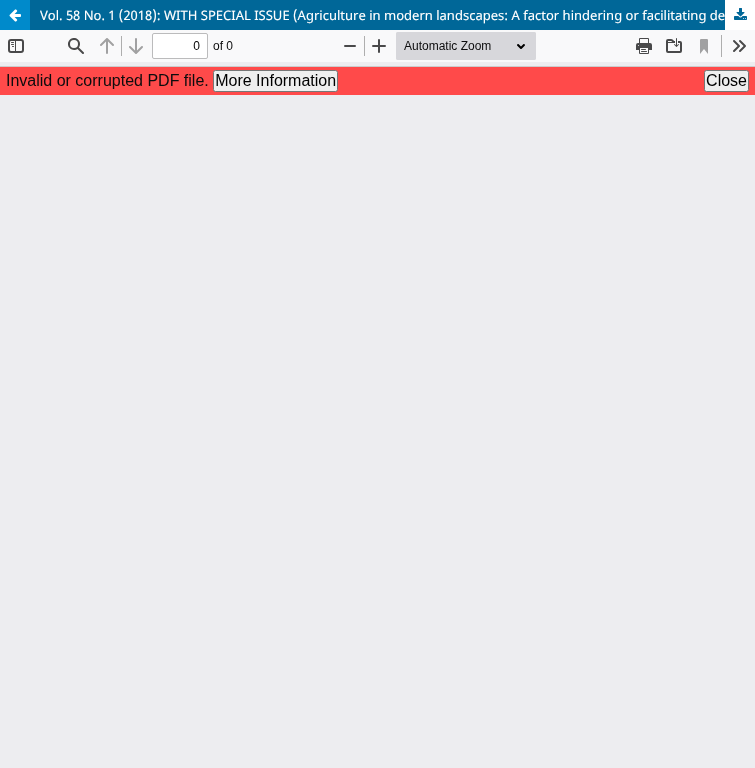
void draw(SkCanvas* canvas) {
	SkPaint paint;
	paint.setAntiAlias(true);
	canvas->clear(0xffffffff);
	paint.setColor(0xff006798);
	canvas->drawRect(SkRect::MakeXYWH(30, 0, 695, 30), paint);
	paint.setColor(0xff008acb);
	canvas->drawRect(SkRect::MakeXYWH(0, 0, 30, 30), paint);
	canvas->drawImageRect(SkImages::DeferredFromEncodedData(SkData::MakeFromFileName("img1.png")), SkRect::MakeXYWH(9, 9, 12, 13), SkSamplingOptions());
	SkFont f1(fontMgr->matchFamilyStyle("Noto Sans", SkFontStyle::Normal()), 13.02);
	f1.setSubpixel(true);
	paint.setColor(0xffffffff);
	canvas->drawString("Vol. 58 No. 1 (2018): WITH SPECIAL ISSUE (Agriculture in modern landscapes: A factor hindering or facilitating de", 40, 20, f1, paint);
	canvas->drawImageRect(SkImages::DeferredFromEncodedData(SkData::MakeFromFileName("img2.png")), SkRect::MakeXYWH(734, 8, 13, 12), SkSamplingOptions());
	canvas->drawImageRect(SkImages::DeferredFromEncodedData(SkData::MakeFromFileName("img3.png")), SkRect::MakeXYWH(0, 30, 755, 738), SkSamplingOptions());
}
